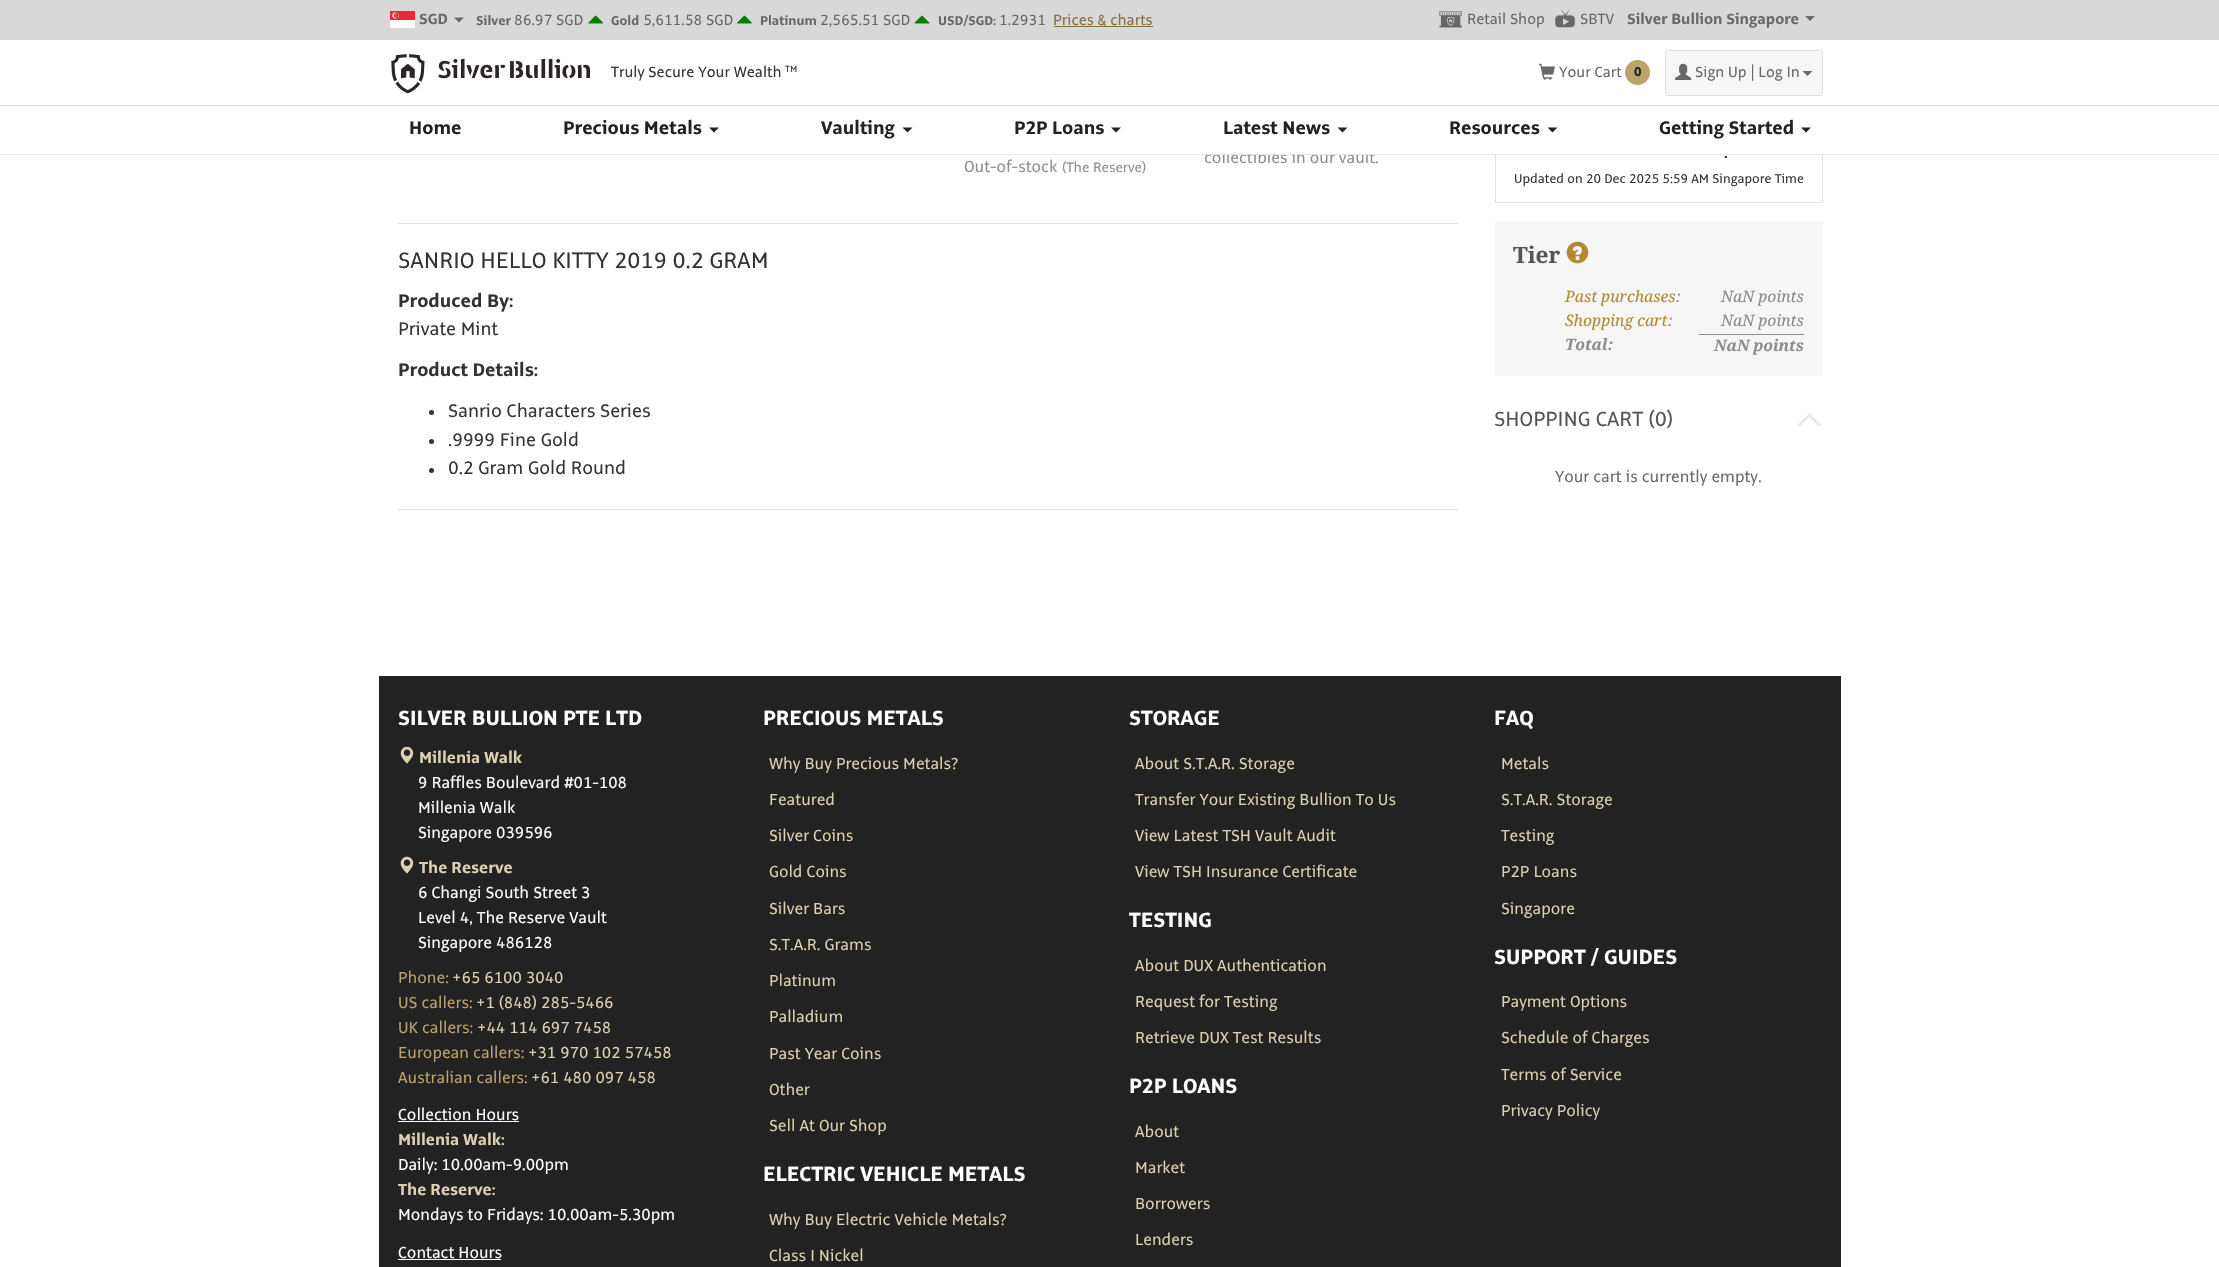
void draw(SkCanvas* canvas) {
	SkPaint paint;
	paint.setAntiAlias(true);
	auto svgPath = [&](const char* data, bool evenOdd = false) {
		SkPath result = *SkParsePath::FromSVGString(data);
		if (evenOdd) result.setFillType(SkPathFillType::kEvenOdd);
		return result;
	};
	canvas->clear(0xffffffff);
	SkFont f1(fontMgr->matchFamilyStyle("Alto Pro", SkFontStyle::Normal()), 17.5);
	f1.setSubpixel(true);
	paint.setColor(0xff8c8c8c);
	canvas->drawString("collectibles in our vault.", 1204, 163, f1, paint);
	paint.setStroke(true);
	paint.setStrokeWidth(1);
	paint.setColor(0xffe0e0e0);
	canvas->drawRect(SkRect::MakeXYWH(1495.5, -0.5, 327, 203), paint);
	paint.setStroke(false);
	paint.setColor(0xffffffff);
	canvas->drawRect(SkRect::MakeXYWH(1223, 40, 600, 114), paint);
	paint.setColor(0xffe6e6e6);
	canvas->drawRect(SkRect::MakeXYWH(0, 154, 2219, 1), paint);
	paint.setColor(0xffd8d8d8);
	canvas->drawRect(SkRect::MakeXYWH(0, 0, 2219, 40), paint);
	canvas->drawImageRect(SkImages::DeferredFromEncodedData(SkData::MakeFromFileName("img1.png")), SkRect::MakeXYWH(390, 11, 25, 17), SkSamplingOptions());
	SkFont f2(fontMgr->matchFamilyStyle("Alto Pro", SkFontStyle::Bold()), 16.25);
	f2.setSubpixel(true);
	paint.setColor(0xff686868);
	canvas->drawString("SGD", 419, 24, f2, paint);
	canvas->drawPath(svgPath("M454 17.5H464L459 22.5Z"), paint);
	SkFont f3(fontMgr->matchFamilyStyle("Alto Pro", SkFontStyle::Bold()), 14);
	f3.setSubpixel(true);
	canvas->drawString("Silver", 476, 25, f3, paint);
	SkFont f4(fontMgr->matchFamilyStyle("Alto Pro", SkFontStyle::Normal()), 16.25);
	f4.setSubpixel(true);
	canvas->drawString("86.97 SGD", 514, 25, f4, paint);
	canvas->drawImageRect(SkImages::DeferredFromEncodedData(SkData::MakeFromFileName("img2.png")), SkRect::MakeXYWH(588, 15, 16, 9), SkSamplingOptions());
	canvas->drawString("Gold", 611, 25, f3, paint);
	canvas->drawString("5,611.58 SGD", 643, 25, f4, paint);
	canvas->drawImageRect(SkImages::DeferredFromEncodedData(SkData::MakeFromFileName("img3.png")), SkRect::MakeXYWH(737, 15, 15, 9), SkSamplingOptions());
	canvas->drawString("Platinum", 760, 25, f3, paint);
	canvas->drawString("2,565.51 SGD", 820, 25, f4, paint);
	canvas->drawImageRect(SkImages::DeferredFromEncodedData(SkData::MakeFromFileName("img4.png")), SkRect::MakeXYWH(914, 15, 16, 9), SkSamplingOptions());
	canvas->drawString("USD/SGD:", 938, 25, f3, paint);
	canvas->drawString("1.2931", 999, 25, f4, paint);
	paint.setColor(0xff856f3d);
	canvas->drawString("Prices & charts", 1053, 25, f4, paint);
	canvas->drawRect(SkRect::MakeXYWH(1054, 26, 99, 1), paint);
	canvas->drawImageRect(SkImages::DeferredFromEncodedData(SkData::MakeFromFileName("img5.png")), SkRect::MakeXYWH(1439, 11, 23, 17), SkSamplingOptions());
	paint.setColor(0xff686868);
	canvas->drawString("Retail Shop", 1467, 24, f4, paint);
	canvas->drawImageRect(SkImages::DeferredFromEncodedData(SkData::MakeFromFileName("img6.png")), SkRect::MakeXYWH(1555, 9, 20, 19), SkSamplingOptions());
	canvas->drawString("SBTV", 1580, 24, f4, paint);
	canvas->drawString("Silver Bullion Singapore", 1627, 24, f2, paint);
	canvas->drawPath(svgPath("M1805 16H1815L1810 21Z"), paint);
	canvas->drawImageRect(SkImages::DeferredFromEncodedData(SkData::MakeFromFileName("img7.png")), SkRect::MakeXYWH(391, 54, 199, 40), SkSamplingOptions());
	paint.setColor(0xff333333);
	canvas->drawString("Truly Secure Your Wealth", 611, 77, f4, paint);
	SkFont f5(fontMgr->matchFamilyStyle("Alto Pro", SkFontStyle::Normal()), 10);
	f5.setSubpixel(true);
	canvas->drawString("TM", 785, 72, f5, paint);
	canvas->drawImageRect(SkImages::DeferredFromEncodedData(SkData::MakeFromFileName("img8.png")), SkRect::MakeXYWH(1538, 63, 17, 17), SkSamplingOptions());
	paint.setColor(0xff686868);
	canvas->drawString("Your Cart", 1559, 77, f4, paint);
	paint.setColor(0xffbca36c);
	canvas->drawCircle(1637.5, 72.5, 12.5, paint);
	paint.setColor(0xff222222);
	canvas->drawString("0", 1634, 76, f3, paint);
	paint.setColor(0xfff6f6f6);
	canvas->drawRoundRect(SkRect::MakeXYWH(1665.5, 50.5, 157, 45), 2, 2, paint);
	paint.setStroke(true);
	paint.setColor(0xffe0e0e0);
	canvas->drawRoundRect(SkRect::MakeXYWH(1665.5, 50.5, 157, 45), 2, 2, paint);
	canvas->drawImageRect(SkImages::DeferredFromEncodedData(SkData::MakeFromFileName("img9.png")), SkRect::MakeXYWH(1675, 63, 17, 17), SkSamplingOptions());
	paint.setStroke(false);
	paint.setColor(0xff686868);
	canvas->drawString("Sign Up | Log In", 1695, 77, f4, paint);
	canvas->drawPath(svgPath("M1802.5 71H1812.5L1807.5 76Z"), paint);
	paint.setColor(0xffe0e0e0);
	canvas->drawRect(SkRect::MakeXYWH(0, 105, 2219, 1), paint);
	SkFont f6(fontMgr->matchFamilyStyle("Alto Pro", SkFontStyle::Bold()), 20);
	f6.setSubpixel(true);
	paint.setColor(0xff222222);
	canvas->drawString("Home", 409, 134, f6, paint);
	canvas->drawString("Precious Metals", 563, 134, f6, paint);
	canvas->drawPath(svgPath("M709 127.5H719L714 132.5Z"), paint);
	canvas->drawString("Vaulting", 821, 134, f6, paint);
	canvas->drawPath(svgPath("M902.5 127.5H912.5L907.5 132.5Z"), paint);
	canvas->drawString("P2P Loans", 1014, 134, f6, paint);
	canvas->drawPath(svgPath("M1111 127.5H1121L1116 132.5Z"), paint);
	canvas->drawString("Latest News", 1223, 134, f6, paint);
	canvas->drawPath(svgPath("M1337.5 127.5H1347.5L1342.5 132.5Z"), paint);
	canvas->drawString("Resources", 1449, 134, f6, paint);
	canvas->drawPath(svgPath("M1547.5 127.5H1557.5L1552.5 132.5Z"), paint);
	canvas->drawString("Getting Started", 1659, 134, f6, paint);
	canvas->drawPath(svgPath("M1801 127.5H1811L1806 132.5Z"), paint);
	paint.setColor(0xff8c8c8c);
	canvas->drawString("Out-of-stock", 964, 172, f1, paint);
	SkFont f7(fontMgr->matchFamilyStyle("Alto Pro", SkFontStyle::Normal()), 15);
	f7.setSubpixel(true);
	canvas->drawString("(The Reserve)", 1062, 172, f7, paint);
	paint.setColor(0xffe0e0e0);
	canvas->drawRect(SkRect::MakeXYWH(398, 223, 1060, 1), paint);
	SkFont f8(fontMgr->matchFamilyStyle("Alto Pro", SkFontStyle::Normal()), 24.5);
	f8.setSubpixel(true);
	paint.setColor(0xff333333);
	canvas->drawString("SANRIO HELLO KITTY 2019 0.2 GRAM", 398, 268, f8, paint);
	canvas->drawString("Produced By:", 398, 307, f6, paint);
	SkFont f9(fontMgr->matchFamilyStyle("Alto Pro", SkFontStyle::Normal()), 20);
	f9.setSubpixel(true);
	canvas->drawString("Private Mint", 398, 335, f9, paint);
	canvas->drawString("Product Details:", 398, 376, f6, paint);
	canvas->drawCircle(431.5, 412.5, 2.5, paint);
	canvas->drawString("Sanrio Characters Series", 448, 417, f9, paint);
	canvas->drawCircle(431.5, 441.5, 2.5, paint);
	canvas->drawString(".9999 Fine Gold", 448, 446, f9, paint);
	canvas->drawCircle(431.5, 470.5, 2.5, paint);
	canvas->drawString("0.2 Gram Gold Round", 448, 474, f9, paint);
	paint.setColor(0xffe0e0e0);
	canvas->drawRect(SkRect::MakeXYWH(398, 509, 1060, 1), paint);
	SkFont f10(fontMgr->matchFamilyStyle("Alto Pro", SkFontStyle::Bold()), 17.5);
	f10.setSubpixel(true);
	paint.setColor(0xff333333);
	canvas->drawString(".", 1724, 158, f10, paint);
	SkFont f11(fontMgr->matchFamilyStyle("Alto Pro", SkFontStyle::Normal()), 14);
	f11.setSubpixel(true);
	canvas->drawString("Updated on 20 Dec 2025 5:59 AM Singapore Time", 1514, 183, f11, paint);
	paint.setColor(0xfff6f6f6);
	canvas->drawRect(SkRect::MakeXYWH(1495, 221, 328, 155), paint);
	SkFont f12(fontMgr->matchFamilyStyle("Droid Serif", SkFontStyle::Bold()), 22.5);
	f12.setSubpixel(true);
	paint.setColor(0xff555555);
	canvas->drawString("Tier", 1513, 263, f12, paint);
	canvas->drawImageRect(SkImages::DeferredFromEncodedData(SkData::MakeFromFileName("img10.png")), SkRect::MakeXYWH(1566, 241, 23, 23), SkSamplingOptions());
	SkFont f13(fontMgr->matchFamilyStyle("Droid Serif", SkFontStyle::Italic()), 15.75);
	f13.setSubpixel(true);
	paint.setColor(0xffb48933);
	canvas->drawString("Past purchases", 1565, 302, f13, paint);
	paint.setColor(0xff8c8c8c);
	canvas->drawString(":", 1676, 302, f13, paint);
	canvas->drawString("NaN points", 1721, 302, f13, paint);
	paint.setColor(0xffb48933);
	canvas->drawString("Shopping cart", 1565, 326, f13, paint);
	paint.setColor(0xff8c8c8c);
	canvas->drawString(":", 1668, 326, f13, paint);
	canvas->drawString("NaN points", 1721, 326, f13, paint);
	SkFont f14(fontMgr->matchFamilyStyle("Droid Serif", SkFontStyle::BoldItalic()), 15.75);
	f14.setSubpixel(true);
	canvas->drawString("Total:", 1565, 350, f14, paint);
	canvas->drawRect(SkRect::MakeXYWH(1699, 334, 105, 1), paint);
	canvas->drawString("NaN points", 1714, 351, f14, paint);
	canvas->drawImageRect(SkImages::DeferredFromEncodedData(SkData::MakeFromFileName("img11.png")), SkRect::MakeXYWH(1797, 413, 25, 13), SkSamplingOptions());
	SkFont f15(fontMgr->matchFamilyStyle("Alto Pro", SkFontStyle::Normal()), 22.5);
	f15.setSubpixel(true);
	paint.setColor(0xff555555);
	canvas->drawString("SHOPPING CART (0)", 1494, 426, f15, paint);
	paint.setColor(0xff686868);
	canvas->drawString("Your cart is currently empty.", 1555, 482, f1, paint);
	paint.setColor(0xff222222);
	canvas->drawRect(SkRect::MakeXYWH(379, 676, 1462, 591), paint);
	SkFont f16(fontMgr->matchFamilyStyle("Alto Pro", SkFontStyle::Bold()), 22.5);
	f16.setSubpixel(true);
	paint.setColor(0xffffffff);
	canvas->drawString("SILVER BULLION PTE LTD", 398, 725, f16, paint);
	canvas->drawImageRect(SkImages::DeferredFromEncodedData(SkData::MakeFromFileName("img12.png")), SkRect::MakeXYWH(400, 746, 14, 18), SkSamplingOptions());
	paint.setColor(0xffdccfb2);
	canvas->drawString("Millenia Walk", 419, 763, f10, paint);
	paint.setColor(0xffffffff);
	canvas->drawString("9 Raffles Boulevard #01-108", 418, 788, f1, paint);
	canvas->drawString("Millenia Walk", 418, 813, f1, paint);
	canvas->drawString("Singapore 039596", 418, 838, f1, paint);
	canvas->drawImageRect(SkImages::DeferredFromEncodedData(SkData::MakeFromFileName("img12.png")), SkRect::MakeXYWH(400, 856, 14, 18), SkSamplingOptions());
	paint.setColor(0xffdccfb2);
	canvas->drawString("The Reserve", 419, 873, f10, paint);
	paint.setColor(0xffffffff);
	canvas->drawString("6 Changi South Street 3", 418, 898, f1, paint);
	canvas->drawString("Level 4, The Reserve Vault", 418, 923, f1, paint);
	canvas->drawString("Singapore 486128", 418, 948, f1, paint);
	paint.setColor(0xffbca36c);
	canvas->drawString("Phone:", 398, 983, f1, paint);
	paint.setColor(0xffdccfb2);
	canvas->drawString("+65 6100 3040", 452, 983, f1, paint);
	paint.setColor(0xffbca36c);
	canvas->drawString("US callers:", 398, 1008, f1, paint);
	paint.setColor(0xffdccfb2);
	canvas->drawString("+1 (848) 285-5466", 476, 1008, f1, paint);
	paint.setColor(0xffbca36c);
	canvas->drawString("UK callers:", 398, 1033, f1, paint);
	paint.setColor(0xffdccfb2);
	canvas->drawString("+44 114 697 7458", 477, 1033, f1, paint);
	paint.setColor(0xffbca36c);
	canvas->drawString("European callers:", 398, 1058, f1, paint);
	paint.setColor(0xffdccfb2);
	canvas->drawString("+31 970 102 57458", 528, 1058, f1, paint);
	paint.setColor(0xffbca36c);
	canvas->drawString("Australian callers:", 398, 1083, f1, paint);
	paint.setColor(0xffdccfb2);
	canvas->drawString("+61 480 097 458", 531, 1083, f1, paint);
	paint.setColor(0xffffffff);
	canvas->drawString("Collection Hours", 398, 1120, f1, paint);
	canvas->drawRect(SkRect::MakeXYWH(398, 1121, 121, 1), paint);
	paint.setColor(0xffdccfb2);
	canvas->drawString("Millenia Walk:", 398, 1145, f10, paint);
	paint.setColor(0xffffffff);
	canvas->drawString("Daily: 10.00am-9.00pm", 398, 1170, f1, paint);
	paint.setColor(0xffdccfb2);
	canvas->drawString("The Reserve:", 398, 1195, f10, paint);
	paint.setColor(0xffffffff);
	canvas->drawString("Mondays to Fridays: 10.00am-5.30pm", 398, 1220, f1, paint);
	canvas->drawString("Contact Hours", 398, 1258, f1, paint);
	canvas->drawRect(SkRect::MakeXYWH(398, 1259, 103, 1), paint);
	canvas->drawString("PRECIOUS METALS", 763, 725, f16, paint);
	paint.setColor(0xffdccfb2);
	canvas->drawString("Why Buy Precious Metals?", 769, 769, f1, paint);
	canvas->drawString("Featured", 769, 805, f1, paint);
	canvas->drawString("Silver Coins", 769, 841, f1, paint);
	canvas->drawString("Gold Coins", 769, 877, f1, paint);
	canvas->drawString("Silver Bars", 769, 914, f1, paint);
	canvas->drawString("S.T.A.R. Grams", 769, 950, f1, paint);
	canvas->drawString("Platinum", 769, 986, f1, paint);
	canvas->drawString("Palladium", 769, 1022, f1, paint);
	canvas->drawString("Past Year Coins", 769, 1059, f1, paint);
	canvas->drawString("Other", 769, 1095, f1, paint);
	canvas->drawString("Sell At Our Shop", 769, 1131, f1, paint);
	paint.setColor(0xffffffff);
	canvas->drawString("ELECTRIC VEHICLE METALS", 763, 1181, f16, paint);
	paint.setColor(0xffdccfb2);
	canvas->drawString("Why Buy Electric Vehicle Metals?", 769, 1225, f1, paint);
	canvas->drawString("Class I Nickel", 769, 1261, f1, paint);
	paint.setColor(0xffffffff);
	canvas->drawString("STORAGE", 1129, 725, f16, paint);
	paint.setColor(0xffdccfb2);
	canvas->drawString("About S.T.A.R. Storage", 1135, 769, f1, paint);
	canvas->drawString("Transfer Your Existing Bullion To Us", 1135, 805, f1, paint);
	canvas->drawString("View Latest TSH Vault Audit", 1135, 841, f1, paint);
	canvas->drawString("View TSH Insurance Certificate", 1135, 877, f1, paint);
	paint.setColor(0xffffffff);
	canvas->drawString("TESTING", 1129, 927, f16, paint);
	paint.setColor(0xffdccfb2);
	canvas->drawString("About DUX Authentication", 1135, 971, f1, paint);
	canvas->drawString("Request for Testing", 1135, 1007, f1, paint);
	canvas->drawString("Retrieve DUX Test Results", 1135, 1043, f1, paint);
	paint.setColor(0xffffffff);
	canvas->drawString("P2P LOANS", 1129, 1093, f16, paint);
	paint.setColor(0xffdccfb2);
	canvas->drawString("About", 1135, 1137, f1, paint);
	canvas->drawString("Market", 1135, 1173, f1, paint);
	canvas->drawString("Borrowers", 1135, 1209, f1, paint);
	canvas->drawString("Lenders", 1135, 1245, f1, paint);
	paint.setColor(0xffffffff);
	canvas->drawString("FAQ", 1494, 725, f16, paint);
	paint.setColor(0xffdccfb2);
	canvas->drawString("Metals", 1501, 769, f1, paint);
	canvas->drawString("S.T.A.R. Storage", 1501, 805, f1, paint);
	canvas->drawString("Testing", 1501, 841, f1, paint);
	canvas->drawString("P2P Loans", 1501, 877, f1, paint);
	canvas->drawString("Singapore", 1501, 914, f1, paint);
	paint.setColor(0xffffffff);
	canvas->drawString("SUPPORT / GUIDES", 1494, 964, f16, paint);
	paint.setColor(0xffdccfb2);
	canvas->drawString("Payment Options", 1501, 1007, f1, paint);
	canvas->drawString("Schedule of Charges", 1501, 1043, f1, paint);
	canvas->drawString("Terms of Service", 1501, 1080, f1, paint);
	canvas->drawString("Privacy Policy", 1501, 1116, f1, paint);
}
